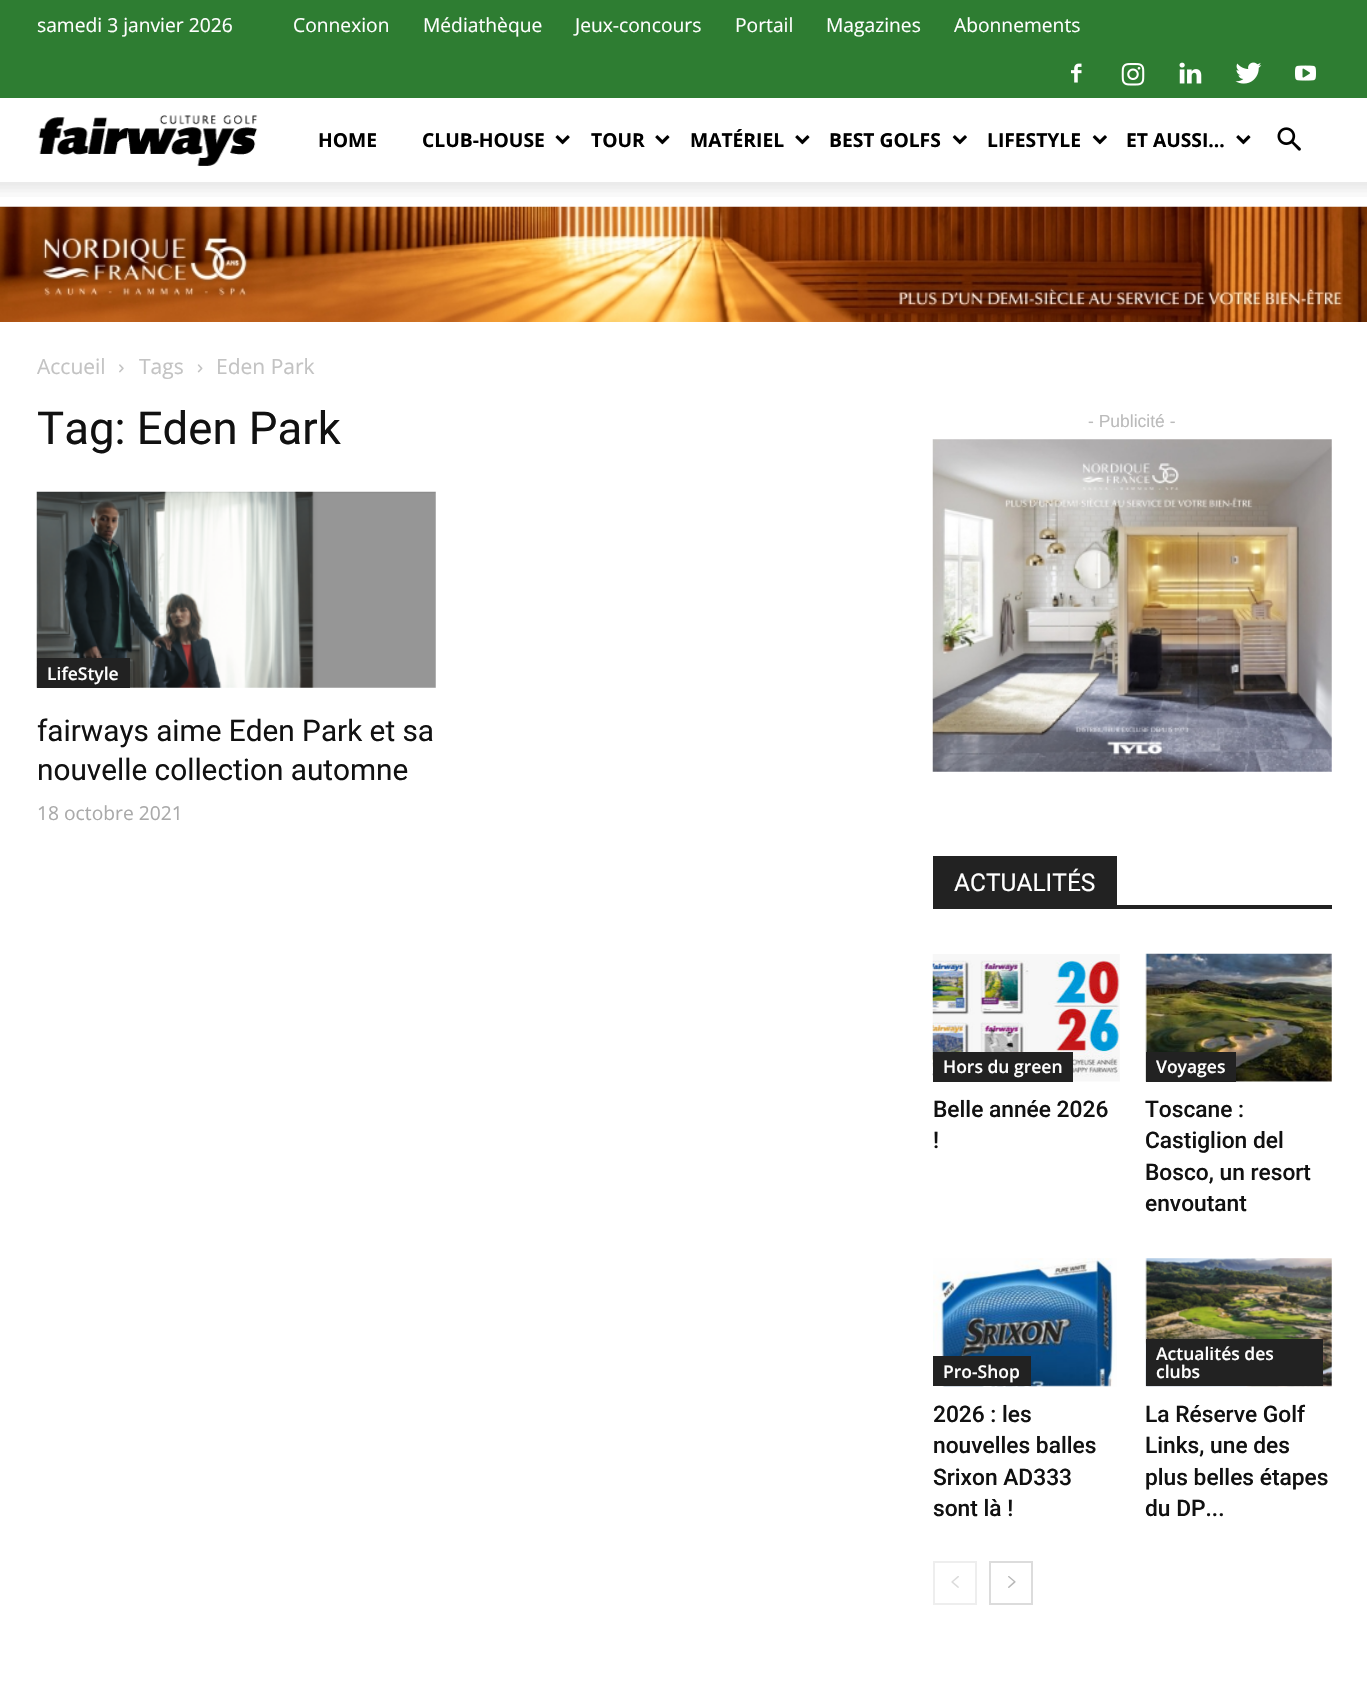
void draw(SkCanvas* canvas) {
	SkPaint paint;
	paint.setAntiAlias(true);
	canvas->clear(0xffffffff);
	paint.setColor(0xff2e7d32);
	canvas->drawRect(SkRect::MakeXYWH(0, 0, 1367, 98), paint);
	SkFont f1(fontMgr->matchFamilyStyle("Open Sans", SkFontStyle::Normal()), 19.25);
	f1.setSubpixel(true);
	paint.setColor(0xffffffff);
	canvas->drawString("samedi 3 janvier 2026", 37, 32, f1, paint);
	canvas->drawString("Connexion", 293, 32, f1, paint);
	canvas->drawString("Médiathèque", 423, 32, f1, paint);
	canvas->drawString("Jeux-concours", 575, 32, f1, paint);
	canvas->drawString("Portail", 735, 32, f1, paint);
	canvas->drawString("Magazines", 826, 32, f1, paint);
	canvas->drawString("Abonnements", 954, 32, f1, paint);
	canvas->drawImageRect(SkImages::DeferredFromEncodedData(SkData::MakeFromFileName("img1.png")), SkRect::MakeXYWH(1071, 63, 11, 20), SkSamplingOptions());
	canvas->drawImageRect(SkImages::DeferredFromEncodedData(SkData::MakeFromFileName("img2.png")), SkRect::MakeXYWH(1121, 63, 24, 23), SkSamplingOptions());
	canvas->drawImageRect(SkImages::DeferredFromEncodedData(SkData::MakeFromFileName("img3.png")), SkRect::MakeXYWH(1179, 62, 23, 22), SkSamplingOptions());
	canvas->drawImageRect(SkImages::DeferredFromEncodedData(SkData::MakeFromFileName("img4.png")), SkRect::MakeXYWH(1235, 62, 27, 22), SkSamplingOptions());
	canvas->drawImageRect(SkImages::DeferredFromEncodedData(SkData::MakeFromFileName("img5.png")), SkRect::MakeXYWH(1295, 65, 21, 16), SkSamplingOptions());
	canvas->drawImageRect(SkImages::DeferredFromEncodedData(SkData::MakeFromFileName("img6.png")), SkRect::MakeXYWH(38, 115, 220, 51), SkSamplingOptions());
	SkFont f2(fontMgr->matchFamilyStyle("Open Sans", SkFontStyle::Bold()), 19.25);
	f2.setSubpixel(true);
	paint.setColor(0xff000000);
	canvas->drawString("HOME", 318, 147, f2, paint);
	canvas->drawString("CLUB-HOUSE", 422, 147, f2, paint);
	canvas->drawImageRect(SkImages::DeferredFromEncodedData(SkData::MakeFromFileName("img7.png")), SkRect::MakeXYWH(555, 135, 15, 10), SkSamplingOptions());
	canvas->drawString("TOUR", 591, 147, f2, paint);
	canvas->drawImageRect(SkImages::DeferredFromEncodedData(SkData::MakeFromFileName("img8.png")), SkRect::MakeXYWH(655, 135, 15, 10), SkSamplingOptions());
	canvas->drawString("MATÉRIEL", 690, 147, f2, paint);
	canvas->drawImageRect(SkImages::DeferredFromEncodedData(SkData::MakeFromFileName("img8.png")), SkRect::MakeXYWH(795, 135, 15, 10), SkSamplingOptions());
	canvas->drawString("BEST GOLFS", 829, 147, f2, paint);
	canvas->drawImageRect(SkImages::DeferredFromEncodedData(SkData::MakeFromFileName("img9.png")), SkRect::MakeXYWH(952, 135, 15, 10), SkSamplingOptions());
	canvas->drawString("LIFESTYLE", 987, 147, f2, paint);
	canvas->drawImageRect(SkImages::DeferredFromEncodedData(SkData::MakeFromFileName("img9.png")), SkRect::MakeXYWH(1092, 135, 15, 10), SkSamplingOptions());
	canvas->drawString("ET AUSSI…", 1126, 147, f2, paint);
	canvas->drawImageRect(SkImages::DeferredFromEncodedData(SkData::MakeFromFileName("img8.png")), SkRect::MakeXYWH(1236, 135, 15, 10), SkSamplingOptions());
	canvas->drawImageRect(SkImages::DeferredFromEncodedData(SkData::MakeFromFileName("img10.png")), SkRect::MakeXYWH(1277, 127, 24, 24), SkSamplingOptions());
	canvas->drawImageRect(SkImages::DeferredFromEncodedData(SkData::MakeFromFileName("img11.png")), SkRect::MakeXYWH(0, 182, 1367, 15), SkSamplingOptions());
	canvas->drawImageRect(SkImages::DeferredFromEncodedData(SkData::MakeFromFileName("img12.png")), SkRect::MakeXYWH(0, 206, 1367, 116), SkSamplingOptions());
	SkFont f3(fontMgr->matchFamilyStyle("Open Sans", SkFontStyle::Normal()), 21);
	f3.setSubpixel(true);
	paint.setColor(0xffc3c3c3);
	canvas->drawString("Accueil", 37, 374, f3, paint);
	canvas->drawImageRect(SkImages::DeferredFromEncodedData(SkData::MakeFromFileName("img13.png")), SkRect::MakeXYWH(119, 364, 5, 9), SkSamplingOptions());
	canvas->drawString("Tags", 139, 374, f3, paint);
	canvas->drawImageRect(SkImages::DeferredFromEncodedData(SkData::MakeFromFileName("img14.png")), SkRect::MakeXYWH(197, 364, 6, 9), SkSamplingOptions());
	canvas->drawString("Eden Park", 216, 374, f3, paint);
	SkFont f4(fontMgr->matchFamilyStyle("Roboto", SkFontStyle::Normal()), 45.5);
	f4.setSubpixel(true);
	paint.setColor(0xff111111);
	canvas->drawString("Tag: Eden Park", 37, 444, f4, paint);
	canvas->drawImageRect(SkImages::DeferredFromEncodedData(SkData::MakeFromFileName("img15.png")), SkRect::MakeXYWH(36, 491, 400, 197), SkSamplingOptions());
	paint.setColor(0xff222222);
	canvas->drawRect(SkRect::MakeXYWH(37, 658, 93, 30), paint);
	SkFont f5(fontMgr->matchFamilyStyle("Open Sans", SkFontStyle(600, SkFontStyle::kNormal_Width, SkFontStyle::kUpright_Slant)), 17.5);
	f5.setSubpixel(true);
	paint.setColor(0xffffffff);
	canvas->drawString("LifeStyle", 47, 680, f5, paint);
	SkFont f6(fontMgr->matchFamilyStyle("Roboto", SkFontStyle::Normal()), 29.75);
	f6.setSubpixel(true);
	paint.setColor(0xff111111);
	canvas->drawString("fairways aime Eden Park et sa", 37, 741, f6, paint);
	canvas->drawString("nouvelle collection automne", 37, 780, f6, paint);
	paint.setColor(0xffaaaaaa);
	canvas->drawString("18 octobre 2021", 37, 820, f1, paint);
	SkFont f7(fontMgr->matchFamilyStyle("Liberation Sans", SkFontStyle::Normal()), 17.5);
	f7.setSubpixel(true);
	paint.setColor(0xffbbbbbb);
	canvas->drawString("- Publicité -", 1088, 427, f7, paint);
	canvas->drawImageRect(SkImages::DeferredFromEncodedData(SkData::MakeFromFileName("img16.png")), SkRect::MakeXYWH(932, 439, 400, 333), SkSamplingOptions());
	paint.setColor(0xff222222);
	canvas->drawRect(SkRect::MakeXYWH(933, 905, 399, 4), paint);
	canvas->drawRect(SkRect::MakeXYWH(933, 856, 184, 49), paint);
	SkFont f8(fontMgr->matchFamilyStyle("Roboto", SkFontStyle::Normal()), 24.5);
	f8.setSubpixel(true);
	paint.setColor(0xffffffff);
	canvas->drawString("ACTUALITÉS", 954, 891, f8, paint);
	canvas->drawImageRect(SkImages::DeferredFromEncodedData(SkData::MakeFromFileName("img17.png")), SkRect::MakeXYWH(932, 954, 188, 128), SkSamplingOptions());
	paint.setColor(0xff222222);
	canvas->drawRect(SkRect::MakeXYWH(933, 1052, 140, 30), paint);
	paint.setColor(0xffffffff);
	canvas->drawString("Hors du green", 943, 1073, f5, paint);
	SkFont f9(fontMgr->matchFamilyStyle("Roboto", SkFontStyle(500, SkFontStyle::kNormal_Width, SkFontStyle::kUpright_Slant)), 22.75);
	f9.setSubpixel(true);
	paint.setColor(0xff111111);
	canvas->drawString("Belle année 2026", 933, 1117, f9, paint);
	canvas->drawString("!", 933, 1148, f9, paint);
	canvas->drawImageRect(SkImages::DeferredFromEncodedData(SkData::MakeFromFileName("img18.png")), SkRect::MakeXYWH(1145, 953, 187, 129), SkSamplingOptions());
	paint.setColor(0xff222222);
	canvas->drawRect(SkRect::MakeXYWH(1146, 1052, 90, 30), paint);
	paint.setColor(0xffffffff);
	canvas->drawString("Voyages", 1156, 1073, f5, paint);
	paint.setColor(0xff111111);
	canvas->drawString("Toscane :", 1145, 1117, f9, paint);
	canvas->drawString("Castiglion del", 1145, 1148, f9, paint);
	canvas->drawString("Bosco, un resort", 1145, 1180, f9, paint);
	canvas->drawString("envoutant", 1145, 1211, f9, paint);
	canvas->drawImageRect(SkImages::DeferredFromEncodedData(SkData::MakeFromFileName("img19.png")), SkRect::MakeXYWH(933, 1258, 184, 129), SkSamplingOptions());
	paint.setColor(0xff222222);
	canvas->drawRect(SkRect::MakeXYWH(933, 1356, 98, 30), paint);
	paint.setColor(0xffffffff);
	canvas->drawString("Pro-Shop", 943, 1378, f5, paint);
	paint.setColor(0xff111111);
	canvas->drawString("2026 : les", 933, 1422, f9, paint);
	canvas->drawString("nouvelles balles", 933, 1453, f9, paint);
	canvas->drawString("Srixon AD333", 933, 1485, f9, paint);
	canvas->drawString("sont là !", 933, 1516, f9, paint);
	canvas->drawImageRect(SkImages::DeferredFromEncodedData(SkData::MakeFromFileName("img20.png")), SkRect::MakeXYWH(1145, 1258, 187, 129), SkSamplingOptions());
	paint.setColor(0xff222222);
	canvas->drawRect(SkRect::MakeXYWH(1146, 1339, 177, 47), paint);
	paint.setColor(0xffffffff);
	canvas->drawString("Actualités des", 1156, 1360, f5, paint);
	canvas->drawString("clubs", 1156, 1378, f5, paint);
	paint.setColor(0xff111111);
	canvas->drawString("La Réserve Golf", 1145, 1422, f9, paint);
	canvas->drawString("Links, une des", 1145, 1453, f9, paint);
	canvas->drawString("plus belles étapes", 1145, 1485, f9, paint);
	canvas->drawString("du DP...", 1145, 1516, f9, paint);
	paint.setStroke(true);
	paint.setStrokeWidth(2);
	paint.setColor(0xffeeeeee);
	canvas->drawRect(SkRect::MakeXYWH(934, 1562, 42, 42), paint);
	canvas->drawImageRect(SkImages::DeferredFromEncodedData(SkData::MakeFromFileName("img21.png")), SkRect::MakeXYWH(951, 1576, 8, 12), SkSamplingOptions());
	paint.setColor(0xffdcdcdc);
	canvas->drawRect(SkRect::MakeXYWH(990, 1562, 42, 42), paint);
	canvas->drawImageRect(SkImages::DeferredFromEncodedData(SkData::MakeFromFileName("img22.png")), SkRect::MakeXYWH(1008, 1576, 8, 12), SkSamplingOptions());
}
